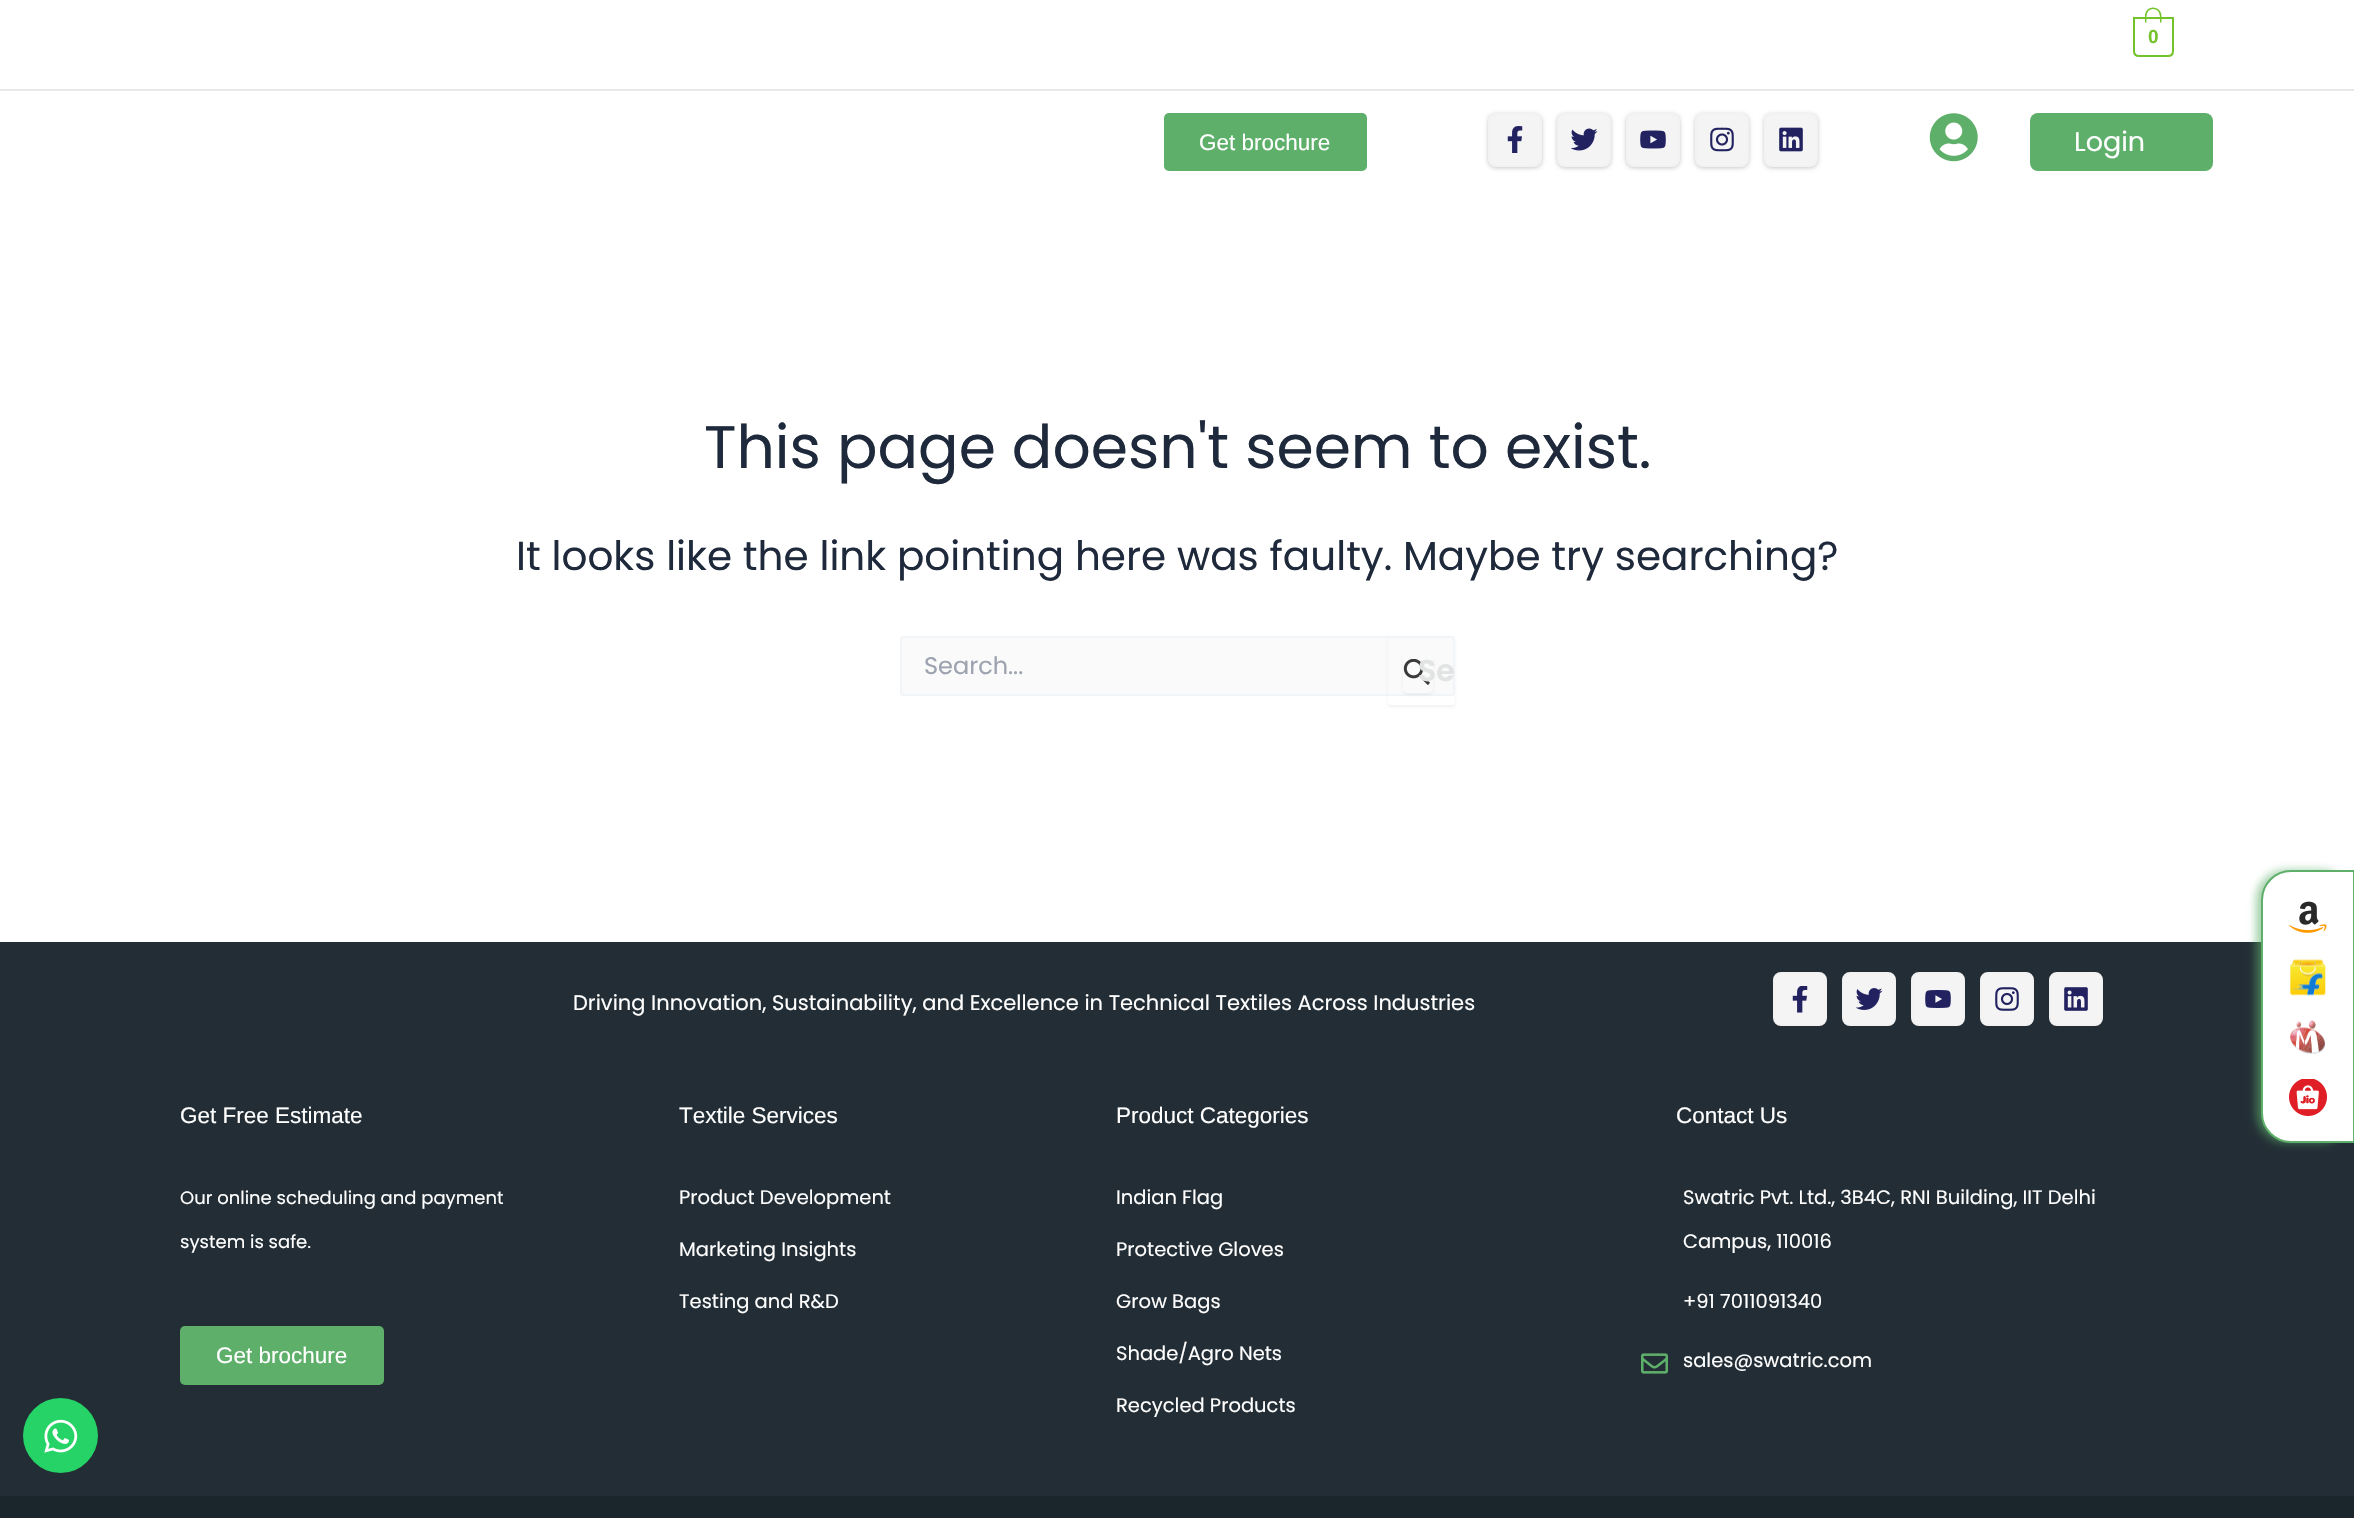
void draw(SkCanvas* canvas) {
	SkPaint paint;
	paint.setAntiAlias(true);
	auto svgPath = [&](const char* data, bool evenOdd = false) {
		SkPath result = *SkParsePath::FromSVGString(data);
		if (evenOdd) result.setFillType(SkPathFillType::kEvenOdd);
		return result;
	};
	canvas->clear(0xffffffff);
	paint.setStroke(true);
	paint.setStrokeWidth(2);
	paint.setColor(0xff75c32c);
	canvas->drawPath(svgPath("M2134 18H2173V51C2173 54 2171 56 2168 56H2139C2136 56 2134 54 2134 51Z"), paint);
	paint.setStroke(false);
	canvas->drawPath(svgPath("M2153 7.5C2157.5 7.5 2161.5 11 2161.5 16V22.5H2145V16C2145 11 2148.5 7.5 2153 7.5ZM2153 9C2161 9 2160 17.5 2160 22.5H2146.5C2146.5 17.5 2145.5 9 2153 9Z", true), paint);
	SkFont f1(fontMgr->matchFamilyStyle("Liberation Sans", SkFontStyle::Bold()), 19);
	f1.setSubpixel(true);
	canvas->drawString("0", 2148, 43, f1, paint);
	paint.setColor(0xffe8e8e8);
	canvas->drawRect(SkRect::MakeXYWH(0, 89, 2354, 2), paint);
	paint.setColor(0xff5eaf6a);
	canvas->drawRoundRect(SkRect::MakeXYWH(1164, 113, 203, 58), 5, 5, paint);
	SkFont f2(fontMgr->matchFamilyStyle("Liberation Sans", SkFontStyle::Normal()), 22.5);
	f2.setSubpixel(true);
	paint.setColor(0xffffffff);
	canvas->drawString("Get brochure", 1199, 150, f2, paint);
	paint.setColor(0xffc9c9c9);
	paint.setMaskFilter(SkMaskFilter::MakeBlur(kNormal_SkBlurStyle, 2));
	canvas->drawRoundRect(SkRect::MakeXYWH(1488, 114, 54, 54), 8, 8, paint);
	paint.setMaskFilter(nullptr);
	paint.setColor(0xfff4f4f4);
	canvas->drawRoundRect(SkRect::MakeXYWH(1489, 114, 52, 52), 7, 7, paint);
	paint.setStroke(true);
	paint.setColor(0xfff2f2f2);
	canvas->drawRoundRect(SkRect::MakeXYWH(1489, 114, 52, 52), 7, 7, paint);
	canvas->drawImageRect(SkImages::DeferredFromEncodedData(SkData::MakeFromFileName("img1.png")), SkRect::MakeXYWH(1507, 126, 16, 27), SkSamplingOptions());
	paint.setStroke(false);
	paint.setColor(0xffc9c9c9);
	paint.setMaskFilter(SkMaskFilter::MakeBlur(kNormal_SkBlurStyle, 2));
	canvas->drawRoundRect(SkRect::MakeXYWH(1557, 114, 54, 54), 8, 8, paint);
	paint.setMaskFilter(nullptr);
	paint.setColor(0xfff4f4f4);
	canvas->drawRoundRect(SkRect::MakeXYWH(1558, 114, 52, 52), 7, 7, paint);
	paint.setStroke(true);
	paint.setColor(0xfff2f2f2);
	canvas->drawRoundRect(SkRect::MakeXYWH(1558, 114, 52, 52), 7, 7, paint);
	canvas->drawImageRect(SkImages::DeferredFromEncodedData(SkData::MakeFromFileName("img2.png")), SkRect::MakeXYWH(1571, 128, 27, 23), SkSamplingOptions());
	paint.setStroke(false);
	paint.setColor(0xffc9c9c9);
	paint.setMaskFilter(SkMaskFilter::MakeBlur(kNormal_SkBlurStyle, 2));
	canvas->drawRoundRect(SkRect::MakeXYWH(1626, 114, 54, 54), 8, 8, paint);
	paint.setMaskFilter(nullptr);
	paint.setColor(0xfff4f4f4);
	canvas->drawRoundRect(SkRect::MakeXYWH(1627, 114, 52, 52), 7, 7, paint);
	paint.setStroke(true);
	paint.setColor(0xfff2f2f2);
	canvas->drawRoundRect(SkRect::MakeXYWH(1627, 114, 52, 52), 7, 7, paint);
	canvas->drawImageRect(SkImages::DeferredFromEncodedData(SkData::MakeFromFileName("img3.png")), SkRect::MakeXYWH(1640, 130, 26, 19), SkSamplingOptions());
	paint.setStroke(false);
	paint.setColor(0xffc9c9c9);
	paint.setMaskFilter(SkMaskFilter::MakeBlur(kNormal_SkBlurStyle, 2));
	canvas->drawRoundRect(SkRect::MakeXYWH(1695, 114, 54, 54), 8, 8, paint);
	paint.setMaskFilter(nullptr);
	paint.setColor(0xfff4f4f4);
	canvas->drawRoundRect(SkRect::MakeXYWH(1696, 114, 52, 52), 7, 7, paint);
	paint.setStroke(true);
	paint.setColor(0xfff2f2f2);
	canvas->drawRoundRect(SkRect::MakeXYWH(1696, 114, 52, 52), 7, 7, paint);
	canvas->drawImageRect(SkImages::DeferredFromEncodedData(SkData::MakeFromFileName("img4.png")), SkRect::MakeXYWH(1710, 127, 24, 25), SkSamplingOptions());
	paint.setStroke(false);
	paint.setColor(0xffc9c9c9);
	paint.setMaskFilter(SkMaskFilter::MakeBlur(kNormal_SkBlurStyle, 2));
	canvas->drawRoundRect(SkRect::MakeXYWH(1764, 114, 54, 54), 8, 8, paint);
	paint.setMaskFilter(nullptr);
	paint.setColor(0xfff4f4f4);
	canvas->drawRoundRect(SkRect::MakeXYWH(1765, 114, 52, 52), 7, 7, paint);
	paint.setStroke(true);
	paint.setColor(0xfff2f2f2);
	canvas->drawRoundRect(SkRect::MakeXYWH(1765, 114, 52, 52), 7, 7, paint);
	canvas->drawImageRect(SkImages::DeferredFromEncodedData(SkData::MakeFromFileName("img5.png")), SkRect::MakeXYWH(1779, 127, 24, 25), SkSamplingOptions());
	canvas->drawImageRect(SkImages::DeferredFromEncodedData(SkData::MakeFromFileName("img6.png")), SkRect::MakeXYWH(1929, 113, 49, 49), SkSamplingOptions());
	paint.setStroke(false);
	paint.setColor(0xff5eaf6a);
	canvas->drawRoundRect(SkRect::MakeXYWH(2030, 113, 183, 58), 8, 8, paint);
	SkFont f3(fontMgr->matchFamilyStyle("Poppins", SkFontStyle::Normal()), 27);
	f3.setSubpixel(true);
	paint.setColor(0xffffffff);
	canvas->drawString("Login", 2074, 151, f3, paint);
	paint.setColor(0xff222d35);
	canvas->drawRect(SkRect::MakeXYWH(0, 1064, 2354, 432), paint);
	paint.setColor(0xff25d366);
	canvas->drawCircle(60.5, 1435.5, 37.5, paint);
	canvas->drawImageRect(SkImages::DeferredFromEncodedData(SkData::MakeFromFileName("img7.png")), SkRect::MakeXYWH(44, 1419, 34, 34), SkSamplingOptions());
	SkFont f4(fontMgr->matchFamilyStyle("Poppins", SkFontStyle::Normal()), 60);
	f4.setSubpixel(true);
	paint.setColor(0xff1e293b);
	canvas->drawString("This page doesn't seem to exist.", 704, 468, f4, paint);
	SkFont f5(fontMgr->matchFamilyStyle("Poppins", SkFontStyle::Normal()), 40.5);
	f5.setSubpixel(true);
	canvas->drawString("It looks like the link pointing here was faulty. Maybe try searching?", 516, 570, f5, paint);
	paint.setColor(0xfffafafa);
	canvas->drawRoundRect(SkRect::MakeXYWH(901, 637, 553, 58), 2, 2, paint);
	paint.setStroke(true);
	paint.setColor(0xfff2f5f7);
	canvas->drawRoundRect(SkRect::MakeXYWH(901, 637, 553, 58), 2, 2, paint);
	SkFont f6(fontMgr->matchFamilyStyle("Poppins", SkFontStyle::Normal()), 24);
	f6.setSubpixel(true);
	paint.setStroke(false);
	paint.setColor(0xff9ca3af);
	canvas->drawString("Search...", 924, 674, f6, paint);
	canvas->save();
	canvas->clipPath(svgPath("M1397 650H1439V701H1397ZM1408 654H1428C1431 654 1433 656 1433 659V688C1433 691 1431 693 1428 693H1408C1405 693 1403 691 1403 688V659C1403 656 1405 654 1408 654Z", true), true);
	paint.setColor(0x0d000000);
	paint.setMaskFilter(SkMaskFilter::MakeBlur(kNormal_SkBlurStyle, 1.5));
	canvas->drawRoundRect(SkRect::MakeXYWH(1403, 656, 30, 39), 5, 5, paint);
	paint.setMaskFilter(nullptr);
	canvas->restore();
	canvas->drawImageRect(SkImages::DeferredFromEncodedData(SkData::MakeFromFileName("img8.png")), SkRect::MakeXYWH(1403, 659, 27, 26), SkSamplingOptions());
	canvas->save();
	canvas->clipPath(svgPath("M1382 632H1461V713H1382ZM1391 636H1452C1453.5 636 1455 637.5 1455 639V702C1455 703.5 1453.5 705 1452 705H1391C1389.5 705 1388 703.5 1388 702V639C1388 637.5 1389.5 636 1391 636Z", true), true);
	paint.setMaskFilter(SkMaskFilter::MakeBlur(kNormal_SkBlurStyle, 1.5));
	canvas->drawRoundRect(SkRect::MakeXYWH(1388, 638, 67, 69), 3, 3, paint);
	paint.setMaskFilter(nullptr);
	canvas->restore();
	SkFont f7(fontMgr->matchFamilyStyle("Poppins", SkFontStyle(600, SkFontStyle::kNormal_Width, SkFontStyle::kUpright_Slant)), 30);
	f7.setSubpixel(true);
	paint.setColor(0xffe2e3e3);
	canvas->drawString("Se", 1418, 681, f7, paint);
	paint.setColor(0xff222d35);
	canvas->drawRect(SkRect::MakeXYWH(0, 942, 2261, 122), paint);
	SkFont f8(fontMgr->matchFamilyStyle("Poppins", SkFontStyle::Normal()), 21);
	f8.setSubpixel(true);
	paint.setColor(0xffffffff);
	canvas->drawString("Driving Innovation, Sustainability, and Excellence in Technical Textiles Across Industries", 573, 1010, f8, paint);
	paint.setColor(0xfff4f4f4);
	canvas->drawRoundRect(SkRect::MakeXYWH(1774, 973, 52, 52), 7, 7, paint);
	paint.setStroke(true);
	paint.setColor(0xfff2f2f2);
	canvas->drawRoundRect(SkRect::MakeXYWH(1774, 973, 52, 52), 7, 7, paint);
	canvas->drawImageRect(SkImages::DeferredFromEncodedData(SkData::MakeFromFileName("img9.png")), SkRect::MakeXYWH(1792, 986, 16, 27), SkSamplingOptions());
	paint.setStroke(false);
	paint.setColor(0xfff4f4f4);
	canvas->drawRoundRect(SkRect::MakeXYWH(1843, 973, 52, 52), 7, 7, paint);
	paint.setStroke(true);
	paint.setColor(0xfff2f2f2);
	canvas->drawRoundRect(SkRect::MakeXYWH(1843, 973, 52, 52), 7, 7, paint);
	canvas->drawImageRect(SkImages::DeferredFromEncodedData(SkData::MakeFromFileName("img10.png")), SkRect::MakeXYWH(1856, 988, 27, 22), SkSamplingOptions());
	paint.setStroke(false);
	paint.setColor(0xfff4f4f4);
	canvas->drawRoundRect(SkRect::MakeXYWH(1912, 973, 52, 52), 7, 7, paint);
	paint.setStroke(true);
	paint.setColor(0xfff2f2f2);
	canvas->drawRoundRect(SkRect::MakeXYWH(1912, 973, 52, 52), 7, 7, paint);
	canvas->drawImageRect(SkImages::DeferredFromEncodedData(SkData::MakeFromFileName("img11.png")), SkRect::MakeXYWH(1925, 990, 26, 18), SkSamplingOptions());
	paint.setStroke(false);
	paint.setColor(0xfff4f4f4);
	canvas->drawRoundRect(SkRect::MakeXYWH(1981, 973, 52, 52), 7, 7, paint);
	paint.setStroke(true);
	paint.setColor(0xfff2f2f2);
	canvas->drawRoundRect(SkRect::MakeXYWH(1981, 973, 52, 52), 7, 7, paint);
	canvas->drawImageRect(SkImages::DeferredFromEncodedData(SkData::MakeFromFileName("img12.png")), SkRect::MakeXYWH(1995, 987, 24, 24), SkSamplingOptions());
	paint.setStroke(false);
	paint.setColor(0xfff4f4f4);
	canvas->drawRoundRect(SkRect::MakeXYWH(2050, 973, 52, 52), 7, 7, paint);
	paint.setStroke(true);
	paint.setColor(0xfff2f2f2);
	canvas->drawRoundRect(SkRect::MakeXYWH(2050, 973, 52, 52), 7, 7, paint);
	canvas->drawImageRect(SkImages::DeferredFromEncodedData(SkData::MakeFromFileName("img13.png")), SkRect::MakeXYWH(2064, 987, 24, 24), SkSamplingOptions());
	paint.setStroke(false);
	paint.setColor(0x965eaf6a);
	paint.setMaskFilter(SkMaskFilter::MakeBlur(kNormal_SkBlurStyle, 4));
	canvas->drawRoundRect(SkRect::MakeXYWH(2256, 870, 95, 273), 30, 30, paint);
	paint.setMaskFilter(nullptr);
	paint.setColor(0xffffffff);
	canvas->drawPath(svgPath("M2291 871H2354V1142H2291C2275 1142 2262 1129 2262 1113V900C2262 884 2275 871 2291 871Z"), paint);
	paint.setStroke(true);
	paint.setColor(0xff5eaf6a);
	canvas->drawPath(svgPath("M2291 871H2354V1142H2291C2275 1142 2262 1129 2262 1113V900C2262 884 2275 871 2291 871Z"), paint);
	canvas->drawImageRect(SkImages::DeferredFromEncodedData(SkData::MakeFromFileName("img14.png")), SkRect::MakeXYWH(2289, 901, 38, 32), SkSamplingOptions());
	canvas->drawImageRect(SkImages::DeferredFromEncodedData(SkData::MakeFromFileName("img15.png")), SkRect::MakeXYWH(2290, 959, 36, 37), SkSamplingOptions());
	canvas->drawImageRect(SkImages::DeferredFromEncodedData(SkData::MakeFromFileName("img16.png")), SkRect::MakeXYWH(2290, 1020, 36, 34), SkSamplingOptions());
	canvas->drawImageRect(SkImages::DeferredFromEncodedData(SkData::MakeFromFileName("img17.png")), SkRect::MakeXYWH(2289, 1079, 38, 37), SkSamplingOptions());
	paint.setStroke(false);
	paint.setColor(0xffffffff);
	canvas->drawString("Get Free Estimate", 180, 1123, f2, paint);
	SkFont f9(fontMgr->matchFamilyStyle("Poppins", SkFontStyle::Normal()), 18);
	f9.setSubpixel(true);
	canvas->drawString("Our online scheduling and payment", 180, 1204, f9, paint);
	canvas->drawString("system is safe.", 180, 1248, f9, paint);
	paint.setColor(0xff5eaf6a);
	canvas->drawRoundRect(SkRect::MakeXYWH(180, 1326, 204, 59), 5, 5, paint);
	paint.setColor(0xffffffff);
	canvas->drawString("Get brochure", 216, 1363, f2, paint);
	canvas->drawString("Textile Services", 679, 1123, f2, paint);
	SkFont f10(fontMgr->matchFamilyStyle("Poppins", SkFontStyle::Normal()), 19.5);
	f10.setSubpixel(true);
	canvas->drawString("Product Development", 679, 1204, f10, paint);
	canvas->drawString("Marketing Insights", 679, 1256, f10, paint);
	canvas->drawString("Testing and R&D", 679, 1308, f10, paint);
	canvas->drawString("Product Categories", 1116, 1123, f2, paint);
	canvas->drawString("Indian Flag", 1116, 1204, f10, paint);
	canvas->drawString("Protective Gloves", 1116, 1256, f10, paint);
	canvas->drawString("Grow Bags", 1116, 1308, f10, paint);
	canvas->drawString("Shade/Agro Nets", 1116, 1360, f10, paint);
	canvas->drawString("Recycled Products", 1116, 1412, f10, paint);
	canvas->drawString("Contact Us", 1676, 1123, f2, paint);
	canvas->drawString("Swatric Pvt. Ltd., 3B4C, RNI Building, IIT Delhi", 1683, 1204, f10, paint);
	canvas->drawString("Campus, 110016", 1683, 1248, f10, paint);
	canvas->drawString("+91 7011091340", 1683, 1308, f10, paint);
	canvas->drawImageRect(SkImages::DeferredFromEncodedData(SkData::MakeFromFileName("img18.png")), SkRect::MakeXYWH(1641, 1353, 27, 21), SkSamplingOptions());
	canvas->drawString("sales@swatric.com", 1683, 1367, f10, paint);
	paint.setColor(0xff1a252c);
	canvas->drawRect(SkRect::MakeXYWH(0, 1496, 2354, 22), paint);
}
